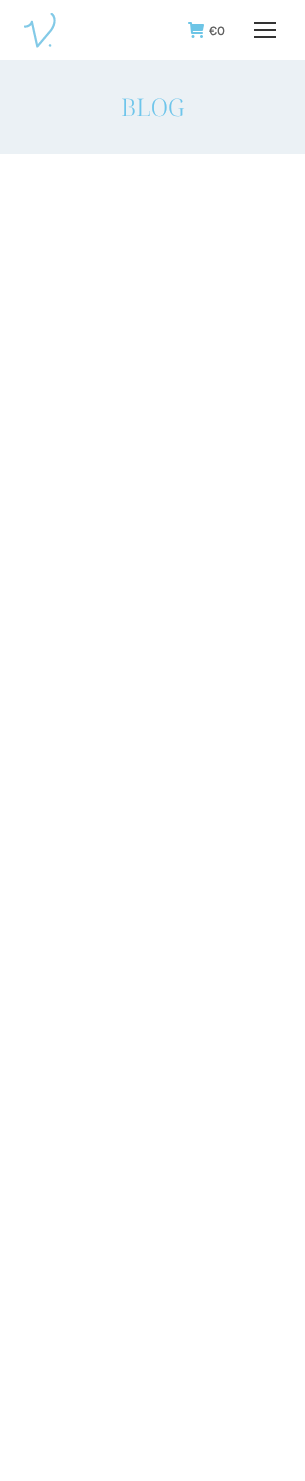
void draw(SkCanvas* canvas) {
	SkPaint paint;
	paint.setAntiAlias(true);
	canvas->clear(0xffffffff);
	canvas->drawImageRect(SkImages::DeferredFromEncodedData(SkData::MakeFromFileName("img1.png")), SkRect::MakeXYWH(24, 13, 32, 35), SkSamplingOptions());
	canvas->drawImageRect(SkImages::DeferredFromEncodedData(SkData::MakeFromFileName("img2.png")), SkRect::MakeXYWH(188, 22, 16, 16), SkSamplingOptions());
	SkFont f1(fontMgr->matchFamilyStyle("Karla", SkFontStyle(500, SkFontStyle::kNormal_Width, SkFontStyle::kUpright_Slant)), 13);
	f1.setSubpixel(true);
	paint.setColor(0xff606060);
	canvas->drawString("€0", 209, 35, f1, paint);
	paint.setColor(0xff333333);
	canvas->drawRect(SkRect::MakeXYWH(254, 22, 22, 2), paint);
	canvas->drawRect(SkRect::MakeXYWH(254, 29, 22, 2), paint);
	canvas->drawRect(SkRect::MakeXYWH(254, 36, 22, 2), paint);
	paint.setColor(0xffebf1f5);
	canvas->drawRect(SkRect::MakeXYWH(0, 60, 305, 94), paint);
	SkFont f2(fontMgr->matchFamilyStyle("Noto Serif Display", SkFontStyle(300, SkFontStyle::kNormal_Width, SkFontStyle::kUpright_Slant)), 24);
	f2.setSubpixel(true);
	paint.setColor(0xff6dc5eb);
	canvas->drawString("BLOG", 121, 116, f2, paint);
}
